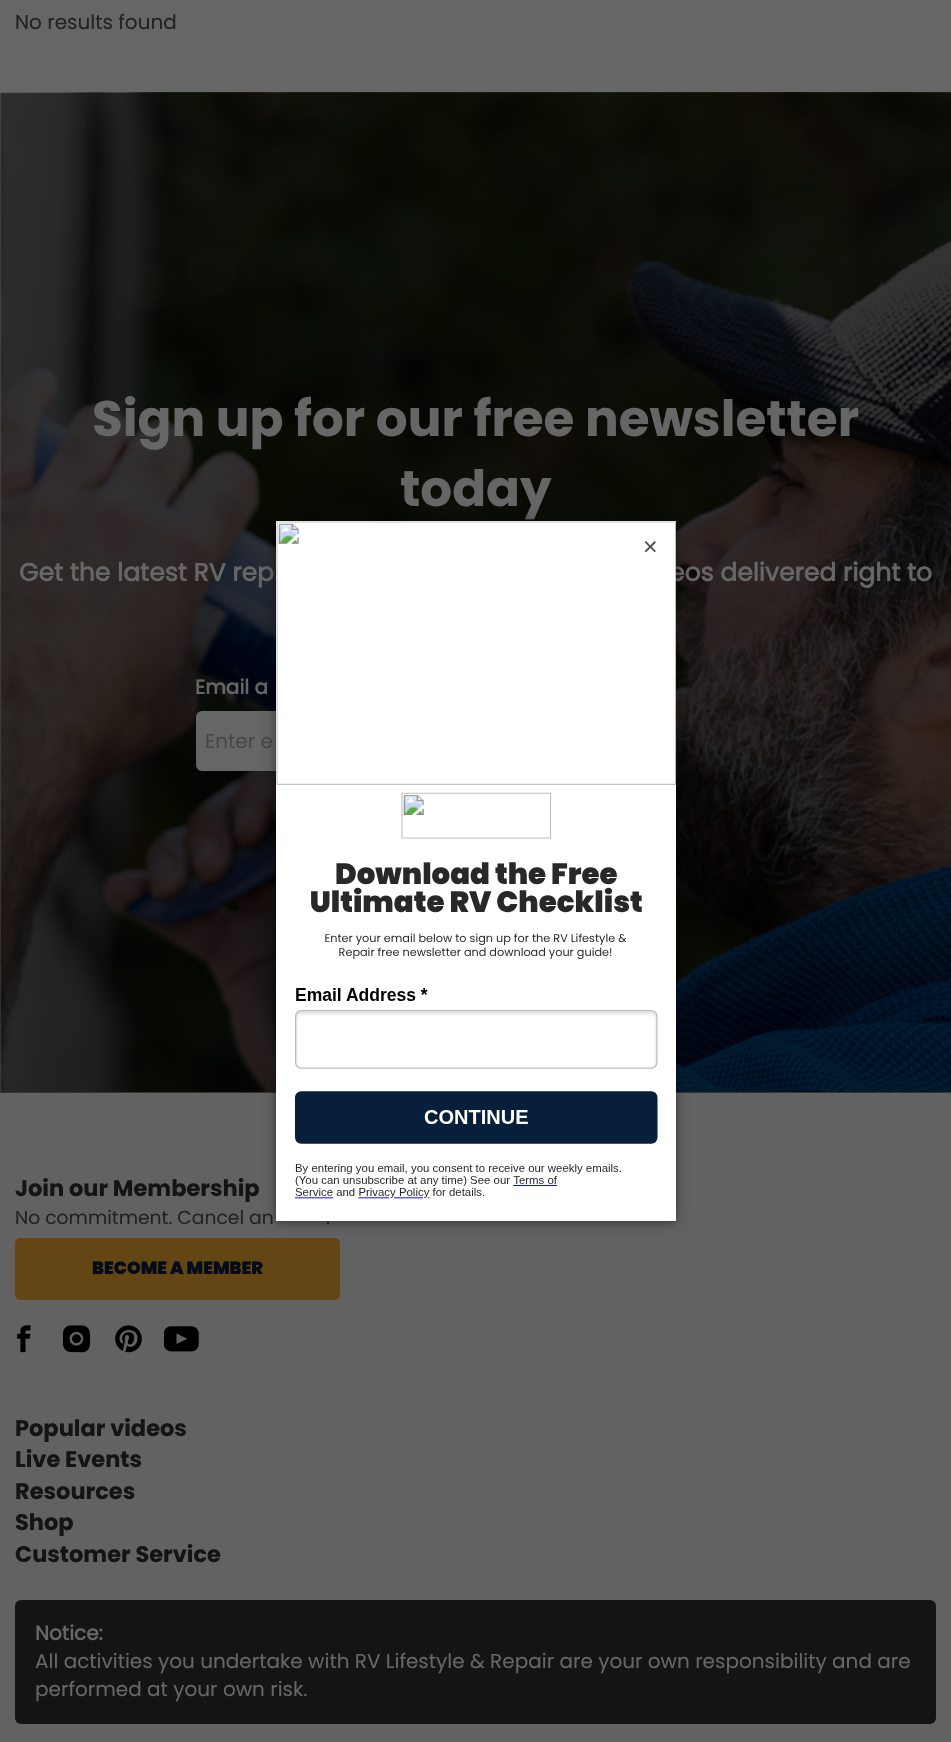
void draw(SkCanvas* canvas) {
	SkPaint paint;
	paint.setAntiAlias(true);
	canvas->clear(0xff666666);
	SkFont f1(fontMgr->matchFamilyStyle("Poppins", SkFontStyle::Normal()), 20);
	f1.setSubpixel(true);
	paint.setColor(0xff222222);
	canvas->drawString("No results found", 15, 29, f1, paint);
	paint.setColor(0xff333333);
	canvas->drawRect(SkRect::MakeXYWH(0, 93, 951, 1000), paint);
	canvas->drawImageRect(SkImages::DeferredFromEncodedData(SkData::MakeFromFileName("img1.png")), SkRect::MakeXYWH(0, 92, 951, 1000), SkSamplingOptions());
	SkFont f2(fontMgr->matchFamilyStyle("Poppins", SkFontStyle::Bold()), 50);
	f2.setSubpixel(true);
	paint.setColor(0xff666666);
	canvas->drawString("Sign up for our free newsletter", 92, 436, f2, paint);
	canvas->drawString("today", 400, 506, f2, paint);
	SkFont f3(fontMgr->matchFamilyStyle("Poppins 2", SkFontStyle::Bold()), 25);
	f3.setSubpixel(true);
	canvas->drawString("Get the latest RV rep", 19, 581, f3, paint);
	canvas->drawString("eos delivered right to", 669, 581, f3, paint);
	SkFont f4(fontMgr->matchFamilyStyle("Poppins 2", SkFontStyle::Bold()), 20);
	f4.setSubpixel(true);
	canvas->drawString("Email a", 195, 694, f4, paint);
	canvas->drawRoundRect(SkRect::MakeXYWH(196, 711, 280, 60), 6, 6, paint);
	paint.setColor(0xff474747);
	canvas->drawString("Enter e", 205, 748, f1, paint);
	paint.setColor(0xff626263);
	canvas->drawRect(SkRect::MakeXYWH(0, 1093, 951, 649), paint);
	SkFont f5(fontMgr->matchFamilyStyle("Poppins", SkFontStyle::Bold()), 22.5);
	f5.setSubpixel(true);
	paint.setColor(0xff141414);
	canvas->drawString("Join our Membership", 15, 1196, f5, paint);
	SkFont f6(fontMgr->matchFamilyStyle("Poppins", SkFontStyle::Normal()), 18.75);
	f6.setSubpixel(true);
	paint.setColor(0xff222222);
	canvas->drawString("No commitment. Cancel an", 15, 1224, f6, paint);
	canvas->drawString(".", 326, 1224, f6, paint);
	paint.setColor(0xff644614);
	canvas->drawRoundRect(SkRect::MakeXYWH(15, 1238, 325, 62), 5, 5, paint);
	SkFont f7(fontMgr->matchFamilyStyle("Poppins", SkFontStyle(900, SkFontStyle::kNormal_Width, SkFontStyle::kUpright_Slant)), 17.5);
	f7.setSubpixel(true);
	paint.setColor(0xff030c18);
	canvas->drawString("BECOME A MEMBER", 92, 1274, f7, paint);
	canvas->drawImageRect(SkImages::DeferredFromEncodedData(SkData::MakeFromFileName("img2.png")), SkRect::MakeXYWH(17, 1325, 14, 28), SkSamplingOptions());
	canvas->drawImageRect(SkImages::DeferredFromEncodedData(SkData::MakeFromFileName("img3.png")), SkRect::MakeXYWH(63, 1325, 28, 28), SkSamplingOptions());
	canvas->drawImageRect(SkImages::DeferredFromEncodedData(SkData::MakeFromFileName("img4.png")), SkRect::MakeXYWH(115, 1325, 27, 28), SkSamplingOptions());
	canvas->drawImageRect(SkImages::DeferredFromEncodedData(SkData::MakeFromFileName("img5.png")), SkRect::MakeXYWH(164, 1326, 35, 26), SkSamplingOptions());
	paint.setColor(0xff141414);
	canvas->drawString("Popular videos", 15, 1436, f5, paint);
	canvas->drawString("Live Events", 15, 1467, f5, paint);
	canvas->drawString("Resources", 15, 1499, f5, paint);
	canvas->drawString("Shop", 15, 1530, f5, paint);
	canvas->drawString("Customer Service", 15, 1562, f5, paint);
	canvas->drawRoundRect(SkRect::MakeXYWH(15, 1600, 921, 124), 6, 6, paint);
	paint.setColor(0xff666666);
	canvas->drawString("Notice:", 35, 1640, f4, paint);
	canvas->drawString("All activities you undertake with RV Lifestyle & Repair are your own responsibility and are", 35, 1668, f1, paint);
	canvas->drawString("performed at your own risk.", 35, 1696, f1, paint);
	paint.setColor(0x4d000000);
	paint.setMaskFilter(SkMaskFilter::MakeBlur(kNormal_SkBlurStyle, 7.5));
	canvas->drawRect(SkRect::MakeXYWH(276, 521, 400, 700), paint);
	paint.setMaskFilter(nullptr);
	paint.setColor(0x33000000);
	paint.setMaskFilter(SkMaskFilter::MakeBlur(kNormal_SkBlurStyle, 3));
	canvas->drawRect(SkRect::MakeXYWH(276, 523, 400, 700), paint);
	paint.setMaskFilter(nullptr);
	canvas->drawImageRect(SkImages::DeferredFromEncodedData(SkData::MakeFromFileName("img6.png")), SkRect::MakeXYWH(276, 521, 400, 700), SkSamplingOptions());
	SkFont f8(fontMgr->matchFamilyStyle("Liberation Sans", SkFontStyle::Normal()), 25);
	f8.setSubpixel(true);
	paint.setColor(0xff525151);
	canvas->drawString("×", 643, 555, f8, paint);
}
